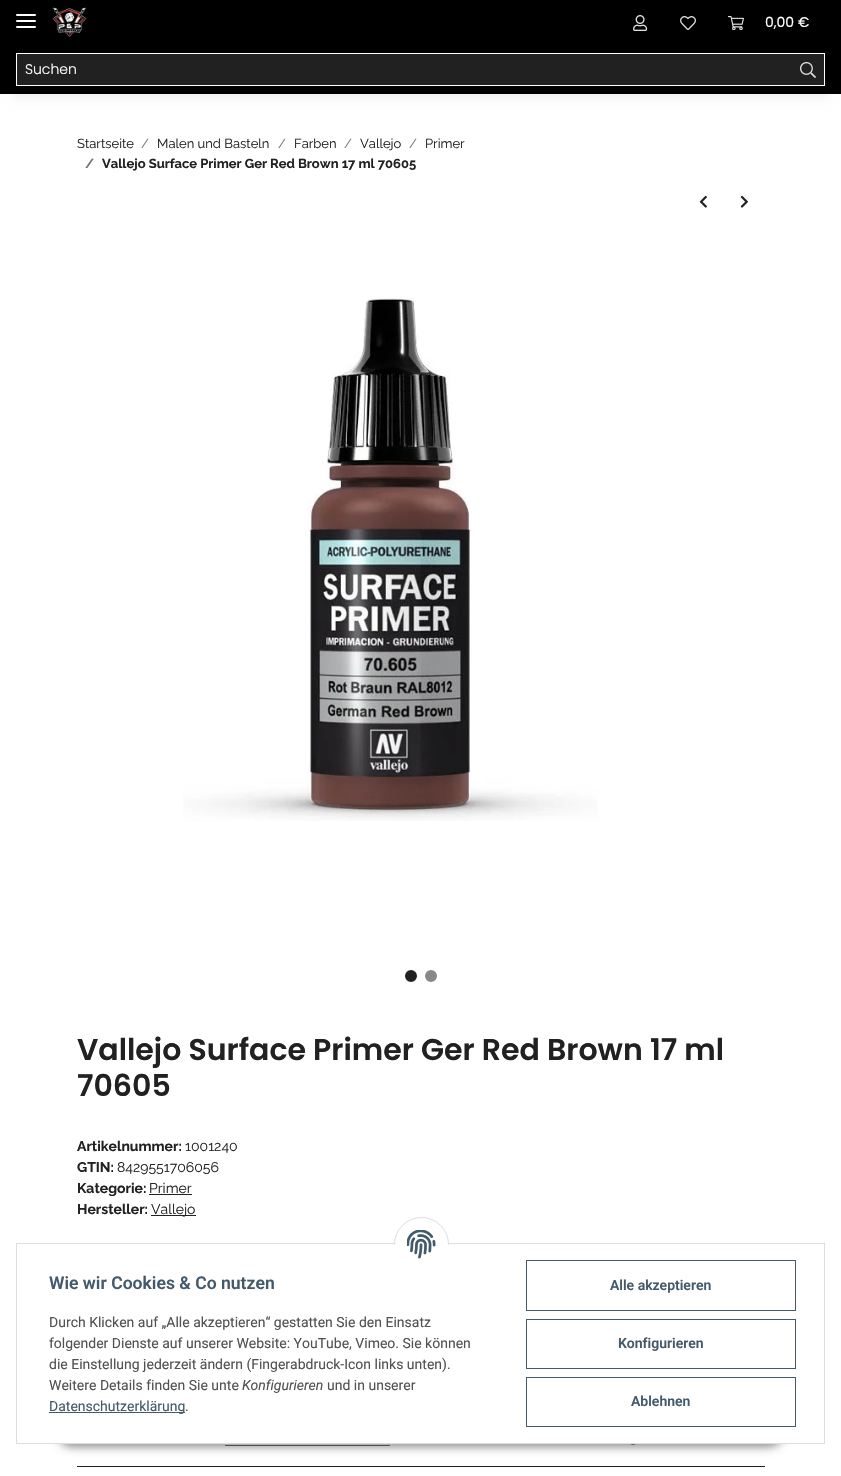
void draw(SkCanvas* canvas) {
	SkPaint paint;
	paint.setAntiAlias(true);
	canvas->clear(0xffffffff);
	paint.setColor(0x0f000000);
	paint.setMaskFilter(SkMaskFilter::MakeBlur(kNormal_SkBlurStyle, 4.5));
	canvas->drawRect(SkRect::MakeXYWH(12, 28, 817, 70), paint);
	paint.setMaskFilter(nullptr);
	paint.setColor(0xff000000);
	canvas->drawRect(SkRect::MakeXYWH(0, 0, 841, 94), paint);
	paint.setColor(0xffffffff);
	canvas->drawRoundRect(SkRect::MakeXYWH(16, 20, 20, 2), 1, 1, paint);
	canvas->drawRoundRect(SkRect::MakeXYWH(16, 14, 20, 2), 1, 1, paint);
	canvas->drawRoundRect(SkRect::MakeXYWH(16, 26, 20, 2), 1, 1, paint);
	canvas->drawImageRect(SkImages::DeferredFromEncodedData(SkData::MakeFromFileName("img1.png")), SkRect::MakeXYWH(52, 7, 35, 30), SkSamplingOptions());
	canvas->drawImageRect(SkImages::DeferredFromEncodedData(SkData::MakeFromFileName("img2.png")), SkRect::MakeXYWH(633, 15, 15, 16), SkSamplingOptions());
	canvas->drawImageRect(SkImages::DeferredFromEncodedData(SkData::MakeFromFileName("img3.png")), SkRect::MakeXYWH(680, 16, 16, 14), SkSamplingOptions());
	canvas->drawImageRect(SkImages::DeferredFromEncodedData(SkData::MakeFromFileName("img4.png")), SkRect::MakeXYWH(728, 16, 16, 14), SkSamplingOptions());
	SkFont f1(fontMgr->matchFamilyStyle("Poppins", SkFontStyle::Normal()), 14);
	f1.setSubpixel(true);
	canvas->drawString("0,00 €", 765, 27, f1, paint);
	paint.setColor(0xff212121);
	canvas->drawRect(SkRect::MakeXYWH(16.5, 53.5, 776, 32), paint);
	paint.setStroke(true);
	paint.setStrokeWidth(1);
	paint.setColor(0xffffffff);
	canvas->drawRect(SkRect::MakeXYWH(16.5, 53.5, 776, 32), paint);
	SkFont f2(fontMgr->matchFamilyStyle("Poppins", SkFontStyle(300, SkFontStyle::kNormal_Width, SkFontStyle::kUpright_Slant)), 14);
	f2.setSubpixel(true);
	paint.setStroke(false);
	canvas->drawString("Suchen", 25, 74, f2, paint);
	paint.setColor(0xff212121);
	canvas->drawRect(SkRect::MakeXYWH(792, 54, 32, 31), paint);
	paint.setColor(0xffffffff);
	canvas->drawRect(SkRect::MakeXYWH(792, 53, 33, 1), paint);
	canvas->drawRect(SkRect::MakeXYWH(824, 53, 1, 33), paint);
	canvas->drawRect(SkRect::MakeXYWH(792, 85, 33, 1), paint);
	canvas->drawImageRect(SkImages::DeferredFromEncodedData(SkData::MakeFromFileName("img5.png")), SkRect::MakeXYWH(800, 62, 16, 16), SkSamplingOptions());
	SkFont f3(fontMgr->matchFamilyStyle("Raleway", SkFontStyle::Normal()), 13);
	f3.setSubpixel(true);
	paint.setColor(0xff212121);
	canvas->drawString("Startseite", 77, 148, f3, paint);
	paint.setColor(0xff707070);
	canvas->drawString("/", 141, 148, f3, paint);
	paint.setColor(0xff212121);
	canvas->drawString("Malen und Basteln", 157, 148, f3, paint);
	paint.setColor(0xff707070);
	canvas->drawString("/", 278, 148, f3, paint);
	paint.setColor(0xff212121);
	canvas->drawString("Farben", 294, 148, f3, paint);
	paint.setColor(0xff707070);
	canvas->drawString("/", 344, 148, f3, paint);
	paint.setColor(0xff212121);
	canvas->drawString("Vallejo", 360, 148, f3, paint);
	paint.setColor(0xff707070);
	canvas->drawString("/", 409, 148, f3, paint);
	paint.setColor(0xff212121);
	canvas->drawString("Primer", 425, 148, f3, paint);
	SkFont f4(fontMgr->matchFamilyStyle("Raleway", SkFontStyle::Bold()), 13);
	f4.setSubpixel(true);
	paint.setColor(0xff707070);
	canvas->drawString("/", 85, 168, f4, paint);
	paint.setColor(0xff212121);
	canvas->drawString("Vallejo Surface Primer Ger Red Brown 17 ml 70605", 102, 168, f4, paint);
	canvas->drawImageRect(SkImages::DeferredFromEncodedData(SkData::MakeFromFileName("img6.png")), SkRect::MakeXYWH(699, 195, 8, 13), SkSamplingOptions());
	canvas->drawImageRect(SkImages::DeferredFromEncodedData(SkData::MakeFromFileName("img7.png")), SkRect::MakeXYWH(740, 195, 8, 13), SkSamplingOptions());
	canvas->drawImageRect(SkImages::DeferredFromEncodedData(SkData::MakeFromFileName("img8.png")), SkRect::MakeXYWH(183, 297, 415, 524), SkSamplingOptions());
	canvas->drawCircle(411, 976, 5, paint);
	paint.setStroke(true);
	paint.setStrokeWidth(2);
	canvas->drawCircle(411, 976, 5, paint);
	paint.setStroke(false);
	paint.setColor(0xff888888);
	canvas->drawCircle(431, 976, 5, paint);
	paint.setStroke(true);
	canvas->drawCircle(431, 976, 5, paint);
	SkFont f5(fontMgr->matchFamilyStyle("Poppins", SkFontStyle(600, SkFontStyle::kNormal_Width, SkFontStyle::kUpright_Slant)), 30);
	f5.setSubpixel(true);
	paint.setStroke(false);
	paint.setColor(0xff212121);
	canvas->drawString("Vallejo Surface Primer Ger Red Brown 17 ml", 77, 1060, f5, paint);
	canvas->drawString("70605", 77, 1096, f5, paint);
	SkFont f6(fontMgr->matchFamilyStyle("Raleway", SkFontStyle::Bold()), 14);
	f6.setSubpixel(true);
	canvas->drawString("Artikelnummer:", 77, 1151, f6, paint);
	SkFont f7(fontMgr->matchFamilyStyle("Raleway", SkFontStyle::Normal()), 14);
	f7.setSubpixel(true);
	canvas->drawString("1001240", 185, 1151, f7, paint);
	canvas->drawString("GTIN:", 77, 1172, f6, paint);
	canvas->drawString("8429551706056", 117, 1172, f7, paint);
	canvas->drawString("Kategorie:", 77, 1193, f6, paint);
	canvas->drawString("Primer", 149, 1193, f7, paint);
	canvas->drawRect(SkRect::MakeXYWH(149, 1194, 43, 1), paint);
	canvas->drawString("Hersteller:", 77, 1214, f6, paint);
	canvas->drawRect(SkRect::MakeXYWH(151, 1215, 45, 1), paint);
	canvas->drawString("Vallejo", 151, 1214, f7, paint);
	canvas->drawRect(SkRect::MakeXYWH(77, 1466, 688, 1), paint);
	canvas->drawImageRect(SkImages::DeferredFromEncodedData(SkData::MakeFromFileName("img9.png")), SkRect::MakeXYWH(630, 1444, 6, 1), SkSamplingOptions());
	paint.setColor(0xff707070);
	canvas->drawRect(SkRect::MakeXYWH(225, 1445, 165, 1), paint);
	paint.setColor(0x73000000);
	paint.setMaskFilter(SkMaskFilter::MakeBlur(kNormal_SkBlurStyle, 5));
	canvas->drawRoundRect(SkRect::MakeXYWH(57, 1415, 727, 32), 16, 16, paint);
	paint.setMaskFilter(nullptr);
	paint.setColor(0xffffffff);
	canvas->drawRect(SkRect::MakeXYWH(48, 1405, 745, 38), paint);
	paint.setStroke(true);
	paint.setStrokeWidth(1);
	paint.setColor(0xffdddddd);
	canvas->drawRect(SkRect::MakeXYWH(16.5, 1243.5, 808, 200), paint);
	paint.setStroke(false);
	paint.setColor(0xffffffff);
	canvas->drawCircle(421.5, 1244.5, 27, paint);
	paint.setStroke(true);
	paint.setColor(0xffdddddd);
	canvas->drawCircle(421.5, 1244.5, 27, paint);
	paint.setStroke(false);
	paint.setColor(0xffffffff);
	canvas->drawRect(SkRect::MakeXYWH(394, 1245, 55, 27), paint);
	canvas->drawImageRect(SkImages::DeferredFromEncodedData(SkData::MakeFromFileName("img10.png")), SkRect::MakeXYWH(407, 1230, 29, 29), SkSamplingOptions());
	SkFont f8(fontMgr->matchFamilyStyle("Roboto", SkFontStyle(600, SkFontStyle::kNormal_Width, SkFontStyle::kUpright_Slant)), 17.6);
	f8.setSubpixel(true);
	paint.setColor(0xff435a6b);
	canvas->drawString("Wie wir Cookies & Co nutzen", 49, 1289, f8, paint);
	SkFont f9(fontMgr->matchFamilyStyle("Roboto", SkFontStyle::Normal()), 14);
	f9.setSubpixel(true);
	paint.setColor(0xff525252);
	canvas->drawString("Durch Klicken auf „Alle akzeptieren“ gestatten Sie den Einsatz", 49, 1327, f9, paint);
	canvas->drawString("folgender Dienste auf unserer Website: YouTube, Vimeo. Sie können", 49, 1348, f9, paint);
	canvas->drawString("die Einstellung jederzeit ändern (Fingerabdruck-Icon links unten).", 49, 1369, f9, paint);
	canvas->drawString("Weitere Details finden Sie unte", 49, 1390, f9, paint);
	SkFont f10(fontMgr->matchFamilyStyle("Roboto", SkFontStyle::Italic()), 14);
	f10.setSubpixel(true);
	canvas->drawString("Konfigurieren", 242, 1390, f10, paint);
	canvas->drawString("und in unserer", 327, 1390, f9, paint);
	paint.setColor(0xff435a6b);
	canvas->drawRect(SkRect::MakeXYWH(49, 1412, 136, 1), paint);
	canvas->drawString("Datenschutzerklärung", 49, 1411, f9, paint);
	paint.setColor(0xff525252);
	canvas->drawString(".", 185, 1411, f9, paint);
	paint.setStroke(true);
	paint.setColor(0xff435a6b);
	canvas->drawRect(SkRect::MakeXYWH(526.5, 1260.5, 269, 50), paint);
	SkFont f11(fontMgr->matchFamilyStyle("Roboto", SkFontStyle(600, SkFontStyle::kNormal_Width, SkFontStyle::kUpright_Slant)), 14);
	f11.setSubpixel(true);
	paint.setStroke(false);
	canvas->drawString("Alle akzeptieren", 610, 1290, f11, paint);
	paint.setStroke(true);
	canvas->drawRect(SkRect::MakeXYWH(526.5, 1319.5, 269, 49), paint);
	paint.setStroke(false);
	canvas->drawString("Konfigurieren", 618, 1348, f11, paint);
	paint.setStroke(true);
	canvas->drawRect(SkRect::MakeXYWH(526.5, 1377.5, 269, 49), paint);
	paint.setStroke(false);
	canvas->drawString("Ablehnen", 631, 1406, f11, paint);
}
